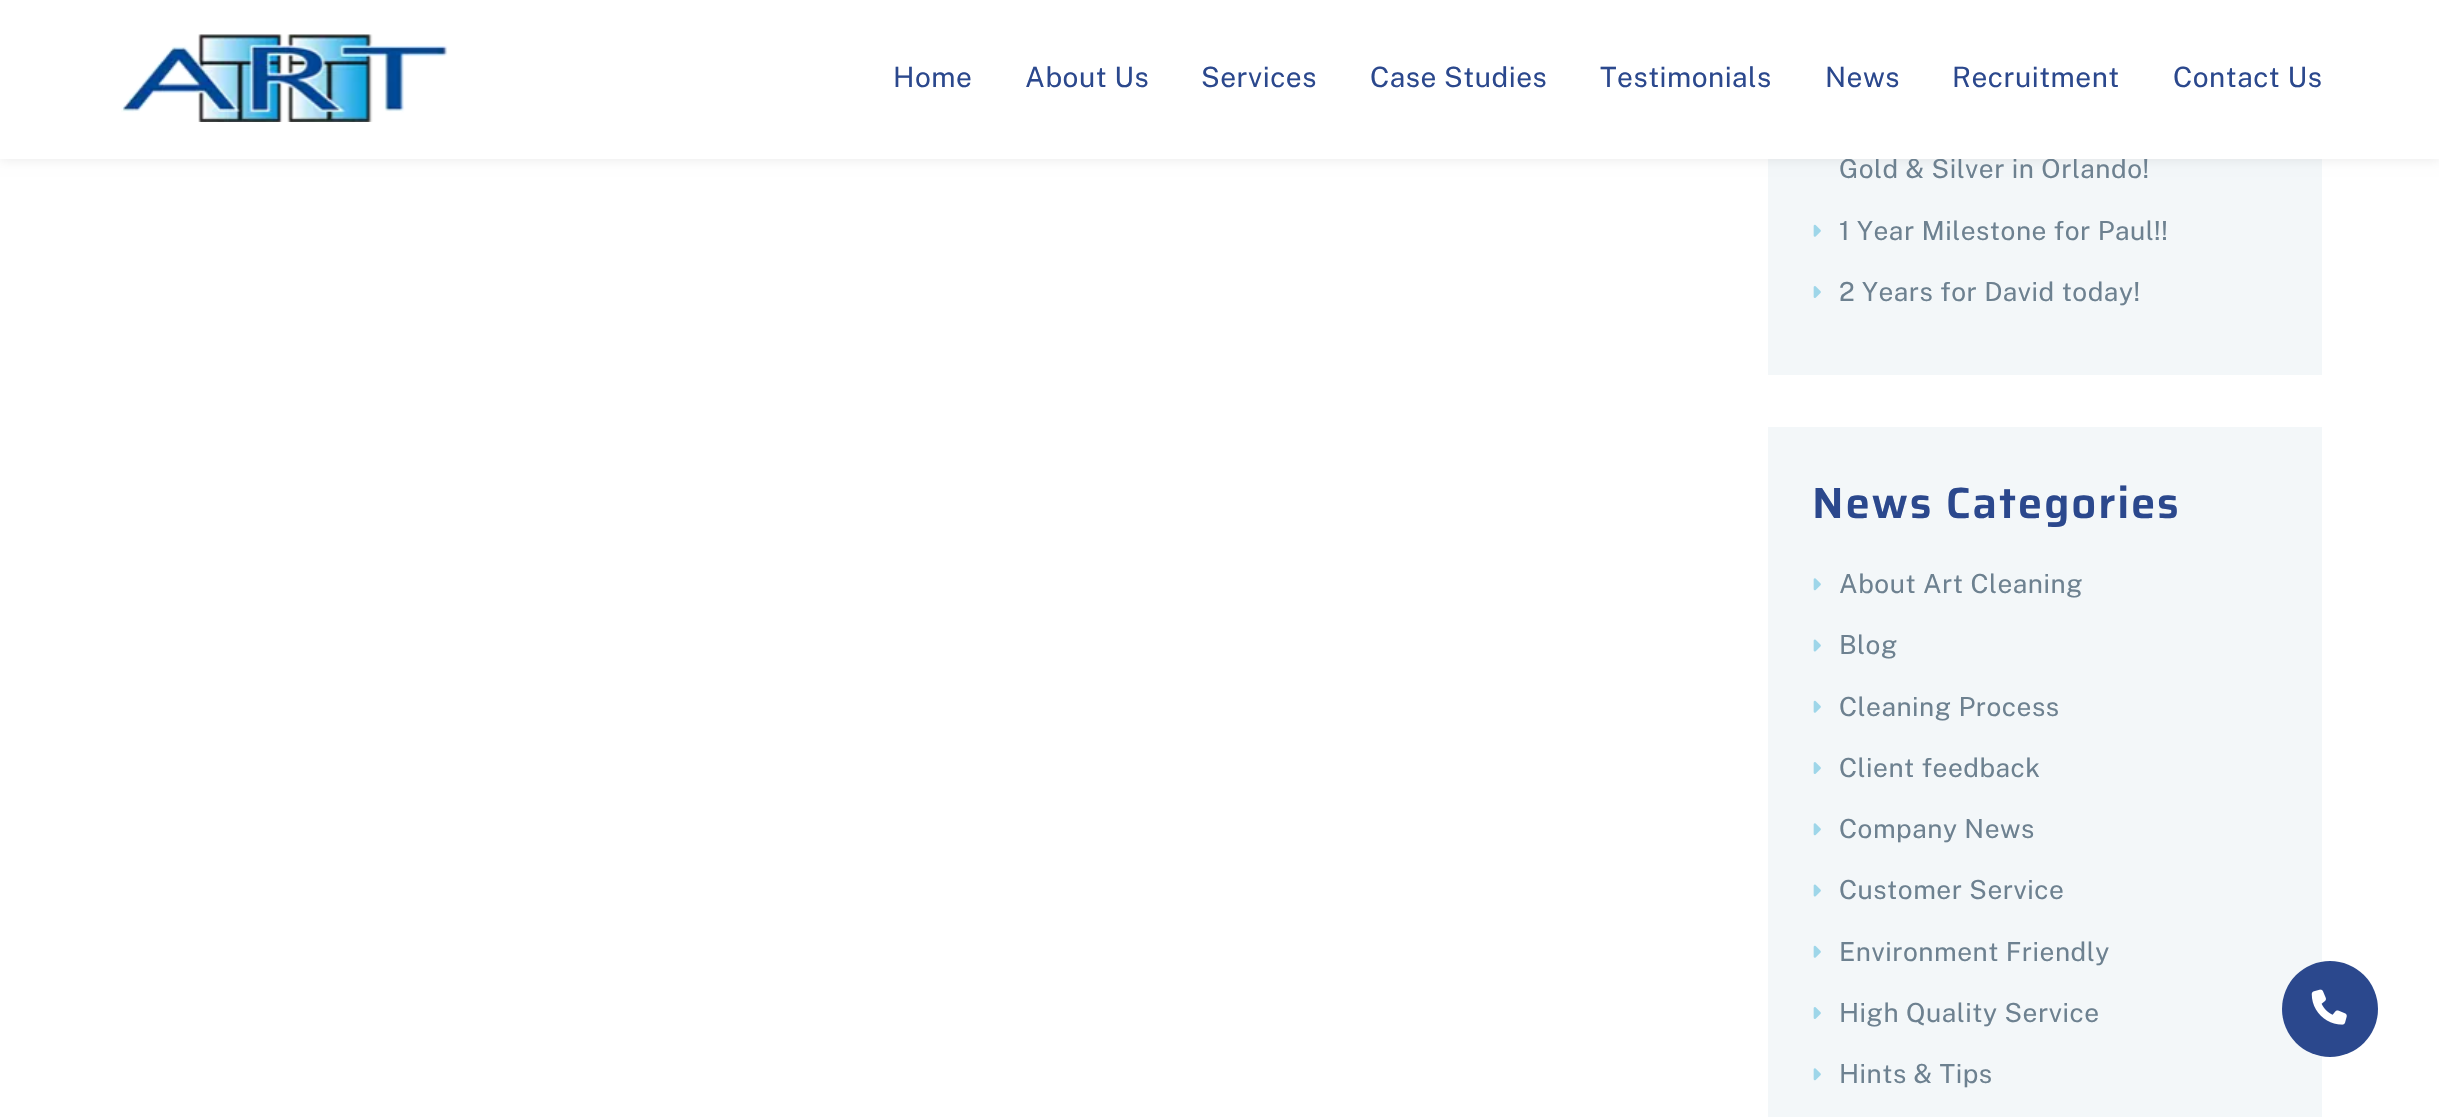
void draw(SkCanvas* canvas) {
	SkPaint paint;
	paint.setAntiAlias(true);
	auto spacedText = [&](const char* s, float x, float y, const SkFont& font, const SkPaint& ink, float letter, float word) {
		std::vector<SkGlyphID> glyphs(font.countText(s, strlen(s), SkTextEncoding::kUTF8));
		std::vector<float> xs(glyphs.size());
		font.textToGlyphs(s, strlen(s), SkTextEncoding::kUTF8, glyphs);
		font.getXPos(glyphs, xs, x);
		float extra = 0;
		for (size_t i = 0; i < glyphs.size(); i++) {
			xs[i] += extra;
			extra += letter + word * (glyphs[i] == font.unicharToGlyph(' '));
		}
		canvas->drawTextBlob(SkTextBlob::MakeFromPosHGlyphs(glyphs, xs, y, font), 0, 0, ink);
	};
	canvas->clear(0xffffffff);
	paint.setColor(0xfff3f7f9);
	canvas->drawRect(SkRect::MakeXYWH(1768, 159, 554, 216), paint);
	paint.setColor(0x17000000);
	paint.setMaskFilter(SkMaskFilter::MakeBlur(kNormal_SkBlurStyle, 6));
	canvas->drawRect(SkRect::MakeXYWH(0, 0, 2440, 159), paint);
	paint.setMaskFilter(nullptr);
	SkFont f1(fontMgr->matchFamilyStyle("Public Sans", SkFontStyle::Normal()), 26.25);
	f1.setSubpixel(true);
	paint.setColor(0xff6d8190);
	spacedText("Gold & Silver in Orlando!", 1839, 178, f1, paint, 0.5, 0);
	paint.setColor(0xffffffff);
	canvas->drawRect(SkRect::MakeXYWH(0, 0, 2439, 159), paint);
	canvas->drawImageRect(SkImages::DeferredFromEncodedData(SkData::MakeFromFileName("img1.png")), SkRect::MakeXYWH(121, 34, 327, 88), SkSamplingOptions());
	SkFont f2(fontMgr->matchFamilyStyle("Public Sans", SkFontStyle::Normal()), 28);
	f2.setSubpixel(true);
	paint.setColor(0xff2b488d);
	spacedText("Home", 893, 87, f2, paint, 0.5, 0);
	spacedText("About Us", 1025, 87, f2, paint, 0.5, 0);
	spacedText("Services", 1201, 87, f2, paint, 0.5, 0);
	spacedText("Case Studies", 1370, 87, f2, paint, 0.5, 0);
	spacedText("Testimonials", 1600, 87, f2, paint, 0.5, 0);
	spacedText("News", 1825, 87, f2, paint, 0.5, 0);
	spacedText("Recruitment", 1952, 87, f2, paint, 0.5, 0);
	spacedText("Contact Us", 2173, 87, f2, paint, 0.5, 0);
	canvas->drawImageRect(SkImages::DeferredFromEncodedData(SkData::MakeFromFileName("img2.png")), SkRect::MakeXYWH(1813, 224, 8, 13), SkSamplingOptions());
	paint.setColor(0xff6d8190);
	spacedText("1 Year Milestone for Paul!!", 1839, 240, f1, paint, 0.5, 0);
	canvas->drawImageRect(SkImages::DeferredFromEncodedData(SkData::MakeFromFileName("img3.png")), SkRect::MakeXYWH(1813, 286, 8, 12), SkSamplingOptions());
	spacedText("2 Years for David today!", 1839, 301, f1, paint, 0.5, 0);
	paint.setColor(0xfff3f7f9);
	canvas->drawRect(SkRect::MakeXYWH(1768, 427, 554, 690), paint);
	SkFont f3(fontMgr->matchFamilyStyle("Saira", SkFontStyle(600, SkFontStyle::kNormal_Width, SkFontStyle::kUpright_Slant)), 43.75);
	f3.setSubpixel(true);
	paint.setColor(0xff2b488d);
	spacedText("News Categories", 1812, 518, f3, paint, 1.75, 0);
	canvas->drawImageRect(SkImages::DeferredFromEncodedData(SkData::MakeFromFileName("img4.png")), SkRect::MakeXYWH(1813, 578, 8, 13), SkSamplingOptions());
	paint.setColor(0xff6d8190);
	spacedText("About Art Cleaning", 1839, 593, f1, paint, 0.5, 0);
	canvas->drawImageRect(SkImages::DeferredFromEncodedData(SkData::MakeFromFileName("img5.png")), SkRect::MakeXYWH(1813, 639, 8, 13), SkSamplingOptions());
	spacedText("Blog", 1839, 654, f1, paint, 0.5, 0);
	canvas->drawImageRect(SkImages::DeferredFromEncodedData(SkData::MakeFromFileName("img2.png")), SkRect::MakeXYWH(1813, 700, 8, 13), SkSamplingOptions());
	spacedText("Cleaning Process", 1839, 716, f1, paint, 0.5, 0);
	canvas->drawImageRect(SkImages::DeferredFromEncodedData(SkData::MakeFromFileName("img3.png")), SkRect::MakeXYWH(1813, 762, 8, 12), SkSamplingOptions());
	spacedText("Client feedback", 1839, 777, f1, paint, 0.5, 0);
	canvas->drawImageRect(SkImages::DeferredFromEncodedData(SkData::MakeFromFileName("img4.png")), SkRect::MakeXYWH(1813, 823, 8, 13), SkSamplingOptions());
	spacedText("Company News", 1839, 838, f1, paint, 0.5, 0);
	canvas->drawImageRect(SkImages::DeferredFromEncodedData(SkData::MakeFromFileName("img5.png")), SkRect::MakeXYWH(1813, 884, 8, 13), SkSamplingOptions());
	spacedText("Customer Service", 1839, 899, f1, paint, 0.5, 0);
	canvas->drawImageRect(SkImages::DeferredFromEncodedData(SkData::MakeFromFileName("img2.png")), SkRect::MakeXYWH(1813, 945, 8, 13), SkSamplingOptions());
	spacedText("Environment Friendly", 1839, 961, f1, paint, 0.5, 0);
	canvas->drawImageRect(SkImages::DeferredFromEncodedData(SkData::MakeFromFileName("img3.png")), SkRect::MakeXYWH(1813, 1007, 8, 12), SkSamplingOptions());
	spacedText("High Quality Service", 1839, 1022, f1, paint, 0.5, 0);
	canvas->drawImageRect(SkImages::DeferredFromEncodedData(SkData::MakeFromFileName("img4.png")), SkRect::MakeXYWH(1813, 1068, 8, 13), SkSamplingOptions());
	spacedText("Hints & Tips", 1839, 1083, f1, paint, 0.5, 0);
	paint.setColor(0xff2b488d);
	canvas->drawCircle(2330, 1009, 48, paint);
	canvas->drawImageRect(SkImages::DeferredFromEncodedData(SkData::MakeFromFileName("img6.png")), SkRect::MakeXYWH(2311, 989, 36, 36), SkSamplingOptions());
}
